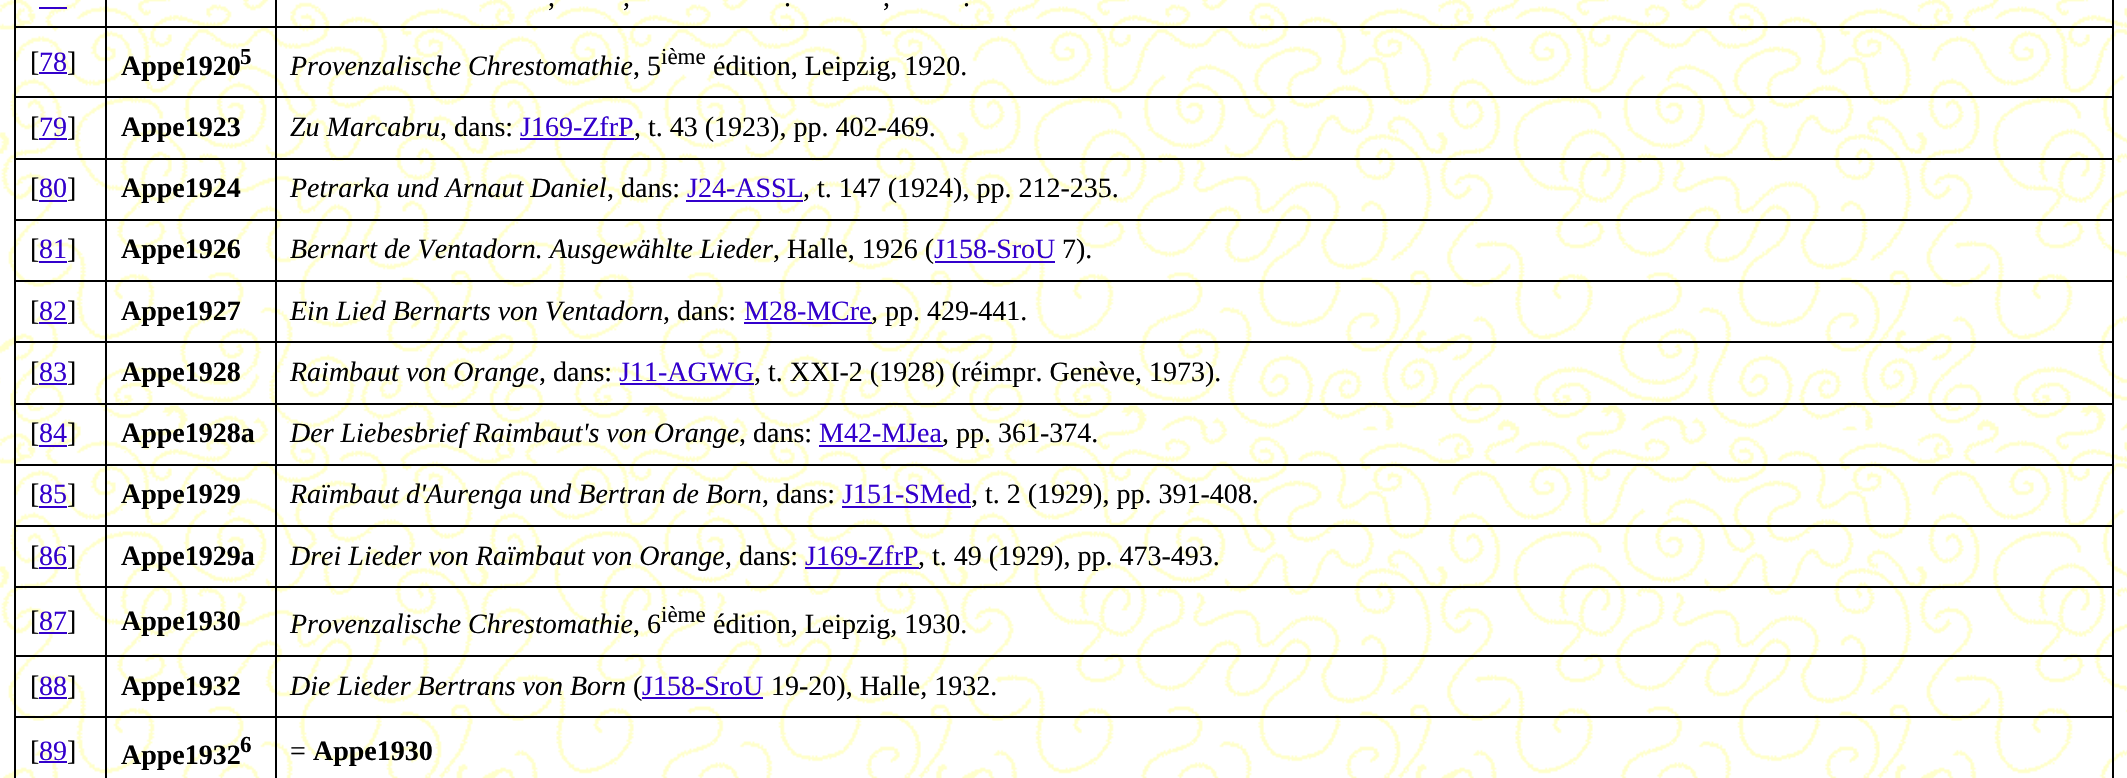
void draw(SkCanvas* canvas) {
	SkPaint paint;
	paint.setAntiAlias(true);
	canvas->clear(0xffffffff);
	canvas->drawImageRect(SkImages::DeferredFromEncodedData(SkData::MakeFromFileName("img1.png")), SkRect::MakeXYWH(0, 0, 2127, 778), SkSamplingOptions());
	paint.setColor(0xff000000);
	canvas->drawRect(SkRect::MakeXYWH(2112, 0, 2, 778), paint);
	canvas->drawRect(SkRect::MakeXYWH(14, 0, 2, 778), paint);
	paint.setColor(0xff3300cc);
	canvas->drawRect(SkRect::MakeXYWH(39, 7, 28, 2), paint);
	paint.setColor(0xff000000);
	canvas->drawRect(SkRect::MakeXYWH(275, 26, 1839, 2), paint);
	canvas->drawRect(SkRect::MakeXYWH(275, 96, 1839, 2), paint);
	canvas->drawRect(SkRect::MakeXYWH(275, 158, 1839, 2), paint);
	canvas->drawRect(SkRect::MakeXYWH(275, 219, 1839, 2), paint);
	canvas->drawRect(SkRect::MakeXYWH(275, 280, 1839, 2), paint);
	canvas->drawRect(SkRect::MakeXYWH(275, 341, 1839, 2), paint);
	canvas->drawRect(SkRect::MakeXYWH(275, 403, 1839, 2), paint);
	canvas->drawRect(SkRect::MakeXYWH(275, 464, 1839, 2), paint);
	canvas->drawRect(SkRect::MakeXYWH(275, 525, 1839, 2), paint);
	canvas->drawRect(SkRect::MakeXYWH(275, 586, 1839, 2), paint);
	canvas->drawRect(SkRect::MakeXYWH(275, 655, 1839, 2), paint);
	canvas->drawRect(SkRect::MakeXYWH(275, 716, 1839, 2), paint);
	canvas->drawRect(SkRect::MakeXYWH(275, 716, 2, 62), paint);
	canvas->drawRect(SkRect::MakeXYWH(105, 716, 172, 2), paint);
	canvas->drawRect(SkRect::MakeXYWH(275, 655, 2, 63), paint);
	canvas->drawRect(SkRect::MakeXYWH(105, 655, 172, 2), paint);
	canvas->drawRect(SkRect::MakeXYWH(275, 586, 2, 70), paint);
	canvas->drawRect(SkRect::MakeXYWH(105, 586, 172, 2), paint);
	canvas->drawRect(SkRect::MakeXYWH(275, 525, 2, 63), paint);
	canvas->drawRect(SkRect::MakeXYWH(105, 525, 172, 2), paint);
	canvas->drawRect(SkRect::MakeXYWH(275, 464, 2, 63), paint);
	canvas->drawRect(SkRect::MakeXYWH(105, 464, 172, 2), paint);
	canvas->drawRect(SkRect::MakeXYWH(275, 403, 2, 63), paint);
	canvas->drawRect(SkRect::MakeXYWH(105, 403, 172, 2), paint);
	canvas->drawRect(SkRect::MakeXYWH(275, 341, 2, 63), paint);
	canvas->drawRect(SkRect::MakeXYWH(105, 341, 172, 2), paint);
	canvas->drawRect(SkRect::MakeXYWH(275, 280, 2, 63), paint);
	canvas->drawRect(SkRect::MakeXYWH(105, 280, 172, 2), paint);
	canvas->drawRect(SkRect::MakeXYWH(275, 219, 2, 63), paint);
	canvas->drawRect(SkRect::MakeXYWH(105, 219, 172, 2), paint);
	canvas->drawRect(SkRect::MakeXYWH(275, 158, 2, 63), paint);
	canvas->drawRect(SkRect::MakeXYWH(105, 158, 172, 2), paint);
	canvas->drawRect(SkRect::MakeXYWH(275, 96, 2, 63), paint);
	canvas->drawRect(SkRect::MakeXYWH(105, 96, 172, 2), paint);
	canvas->drawRect(SkRect::MakeXYWH(275, 26, 2, 72), paint);
	canvas->drawRect(SkRect::MakeXYWH(105, 26, 172, 2), paint);
	canvas->drawRect(SkRect::MakeXYWH(105, 716, 2, 62), paint);
	canvas->drawRect(SkRect::MakeXYWH(14, 716, 93, 2), paint);
	canvas->drawRect(SkRect::MakeXYWH(105, 655, 2, 63), paint);
	canvas->drawRect(SkRect::MakeXYWH(14, 655, 93, 2), paint);
	canvas->drawRect(SkRect::MakeXYWH(105, 586, 2, 70), paint);
	canvas->drawRect(SkRect::MakeXYWH(14, 586, 93, 2), paint);
	canvas->drawRect(SkRect::MakeXYWH(105, 525, 2, 63), paint);
	canvas->drawRect(SkRect::MakeXYWH(14, 525, 93, 2), paint);
	canvas->drawRect(SkRect::MakeXYWH(105, 464, 2, 63), paint);
	canvas->drawRect(SkRect::MakeXYWH(14, 464, 93, 2), paint);
	canvas->drawRect(SkRect::MakeXYWH(105, 403, 2, 63), paint);
	canvas->drawRect(SkRect::MakeXYWH(14, 403, 93, 2), paint);
	canvas->drawRect(SkRect::MakeXYWH(105, 341, 2, 63), paint);
	canvas->drawRect(SkRect::MakeXYWH(14, 341, 93, 2), paint);
	canvas->drawRect(SkRect::MakeXYWH(105, 280, 2, 63), paint);
	canvas->drawRect(SkRect::MakeXYWH(14, 280, 93, 2), paint);
	canvas->drawRect(SkRect::MakeXYWH(105, 219, 2, 63), paint);
	canvas->drawRect(SkRect::MakeXYWH(14, 219, 93, 2), paint);
	canvas->drawRect(SkRect::MakeXYWH(105, 158, 2, 63), paint);
	canvas->drawRect(SkRect::MakeXYWH(14, 158, 93, 2), paint);
	canvas->drawRect(SkRect::MakeXYWH(105, 96, 2, 63), paint);
	canvas->drawRect(SkRect::MakeXYWH(14, 96, 93, 2), paint);
	canvas->drawRect(SkRect::MakeXYWH(105, 26, 2, 72), paint);
	canvas->drawRect(SkRect::MakeXYWH(14, 26, 93, 2), paint);
	canvas->drawRect(SkRect::MakeXYWH(105, 0, 2, 28), paint);
	canvas->drawRect(SkRect::MakeXYWH(275, 0, 2, 28), paint);
	SkFont f1(fontMgr->matchFamilyStyle("Liberation Serif", SkFontStyle::Normal()), 28);
	f1.setSubpixel(true);
	canvas->drawString(",", 548, 6, f1, paint);
	canvas->drawString(",", 623, 6, f1, paint);
	canvas->drawString(".", 784, 6, f1, paint);
	canvas->drawString(",", 883, 6, f1, paint);
	canvas->drawString(".", 963, 6, f1, paint);
	canvas->drawString("[", 30, 71, f1, paint);
	paint.setColor(0xff3300cc);
	canvas->drawRect(SkRect::MakeXYWH(39, 72, 28, 2), paint);
	canvas->drawString("78", 39, 71, f1, paint);
	paint.setColor(0xff000000);
	canvas->drawString("]", 67, 71, f1, paint);
	SkFont f2(fontMgr->matchFamilyStyle("Liberation Serif", SkFontStyle::Bold()), 28);
	f2.setSubpixel(true);
	canvas->drawString("Appe1920", 121, 75, f2, paint);
	SkFont f3(fontMgr->matchFamilyStyle("Liberation Serif", SkFontStyle::Bold()), 23);
	f3.setSubpixel(true);
	canvas->drawString("5", 240, 64, f3, paint);
	SkFont f4(fontMgr->matchFamilyStyle("Liberation Serif", SkFontStyle::Italic()), 28);
	f4.setSubpixel(true);
	canvas->drawString("Provenzalische Chrestomathie", 290, 75, f4, paint);
	canvas->drawString(", 5", 633, 75, f1, paint);
	SkFont f5(fontMgr->matchFamilyStyle("Liberation Serif", SkFontStyle::Normal()), 23);
	f5.setSubpixel(true);
	canvas->drawString("ième", 661, 64, f5, paint);
	canvas->drawString("édition, Leipzig, 1920.", 713, 75, f1, paint);
	canvas->drawString("[", 30, 136, f1, paint);
	paint.setColor(0xff3300cc);
	canvas->drawRect(SkRect::MakeXYWH(39, 138, 28, 2), paint);
	canvas->drawString("79", 39, 136, f1, paint);
	paint.setColor(0xff000000);
	canvas->drawString("]", 67, 136, f1, paint);
	canvas->drawString("Appe1923", 121, 136, f2, paint);
	canvas->drawString("Zu Marcabru", 290, 136, f4, paint);
	canvas->drawString(", dans:", 440, 136, f1, paint);
	paint.setColor(0xff3300cc);
	canvas->drawString("J169-ZfrP", 520, 136, f1, paint);
	paint.setColor(0xff000000);
	canvas->drawString(", t. 43 (1923), pp. 402-469.", 634, 136, f1, paint);
	paint.setColor(0xff3300cc);
	canvas->drawRect(SkRect::MakeXYWH(520, 138, 114, 2), paint);
	paint.setColor(0xff000000);
	canvas->drawString("[", 30, 197, f1, paint);
	paint.setColor(0xff3300cc);
	canvas->drawRect(SkRect::MakeXYWH(39, 200, 28, 2), paint);
	canvas->drawString("80", 39, 197, f1, paint);
	paint.setColor(0xff000000);
	canvas->drawString("]", 67, 197, f1, paint);
	canvas->drawString("Appe1924", 121, 197, f2, paint);
	canvas->drawString("Petrarka und Arnaut Daniel", 290, 197, f4, paint);
	canvas->drawString(", dans:", 607, 197, f1, paint);
	paint.setColor(0xff3300cc);
	canvas->drawString("J24-ASSL", 687, 197, f1, paint);
	paint.setColor(0xff000000);
	canvas->drawString(", t. 147 (1924), pp. 212-235.", 803, 197, f1, paint);
	paint.setColor(0xff3300cc);
	canvas->drawRect(SkRect::MakeXYWH(686, 200, 117, 2), paint);
	paint.setColor(0xff000000);
	canvas->drawString("[", 30, 258, f1, paint);
	paint.setColor(0xff3300cc);
	canvas->drawRect(SkRect::MakeXYWH(39, 261, 28, 2), paint);
	canvas->drawString("81", 39, 258, f1, paint);
	paint.setColor(0xff000000);
	canvas->drawString("]", 67, 258, f1, paint);
	canvas->drawString("Appe1926", 121, 258, f2, paint);
	canvas->drawString("Bernart de Ventadorn. Ausgewählte Lieder", 290, 258, f4, paint);
	canvas->drawString(", Halle, 1926 (", 773, 258, f1, paint);
	paint.setColor(0xff3300cc);
	canvas->drawRect(SkRect::MakeXYWH(935, 261, 120, 2), paint);
	canvas->drawString("J158-SroU", 934, 258, f1, paint);
	paint.setColor(0xff000000);
	canvas->drawString("7).", 1062, 258, f1, paint);
	canvas->drawString("[", 30, 320, f1, paint);
	paint.setColor(0xff3300cc);
	canvas->drawRect(SkRect::MakeXYWH(39, 322, 28, 2), paint);
	canvas->drawString("82", 39, 320, f1, paint);
	paint.setColor(0xff000000);
	canvas->drawString("]", 67, 320, f1, paint);
	canvas->drawString("Appe1927", 121, 320, f2, paint);
	canvas->drawString("Ein Lied Bernarts von Ventadorn", 290, 320, f4, paint);
	canvas->drawString(", dans:", 663, 320, f1, paint);
	paint.setColor(0xff3300cc);
	canvas->drawString("M28-MCre", 744, 320, f1, paint);
	paint.setColor(0xff000000);
	canvas->drawString(", pp. 429-441.", 871, 320, f1, paint);
	paint.setColor(0xff3300cc);
	canvas->drawRect(SkRect::MakeXYWH(744, 322, 128, 2), paint);
	paint.setColor(0xff000000);
	canvas->drawString("[", 30, 381, f1, paint);
	paint.setColor(0xff3300cc);
	canvas->drawRect(SkRect::MakeXYWH(39, 383, 28, 2), paint);
	canvas->drawString("83", 39, 381, f1, paint);
	paint.setColor(0xff000000);
	canvas->drawString("]", 67, 381, f1, paint);
	canvas->drawString("Appe1928", 121, 381, f2, paint);
	canvas->drawString("Raimbaut von Orange", 290, 381, f4, paint);
	canvas->drawString(", dans:", 539, 381, f1, paint);
	paint.setColor(0xff3300cc);
	canvas->drawString("J11-AGWG", 619, 381, f1, paint);
	paint.setColor(0xff000000);
	canvas->drawString(", t. XXI-2 (1928) (réimpr. Genève, 1973).", 754, 381, f1, paint);
	paint.setColor(0xff3300cc);
	canvas->drawRect(SkRect::MakeXYWH(620, 383, 134, 2), paint);
	paint.setColor(0xff000000);
	canvas->drawString("[", 30, 442, f1, paint);
	paint.setColor(0xff3300cc);
	canvas->drawRect(SkRect::MakeXYWH(39, 445, 28, 2), paint);
	canvas->drawString("84", 39, 442, f1, paint);
	paint.setColor(0xff000000);
	canvas->drawString("]", 67, 442, f1, paint);
	canvas->drawString("Appe1928a", 121, 442, f2, paint);
	canvas->drawString("Der Liebesbrief Raimbaut's von Orange", 290, 442, f4, paint);
	canvas->drawString(", dans:", 739, 442, f1, paint);
	paint.setColor(0xff3300cc);
	canvas->drawString("M42-MJea", 819, 442, f1, paint);
	paint.setColor(0xff000000);
	canvas->drawString(", pp. 361-374.", 942, 442, f1, paint);
	paint.setColor(0xff3300cc);
	canvas->drawRect(SkRect::MakeXYWH(819, 445, 124, 2), paint);
	paint.setColor(0xff000000);
	canvas->drawString("[", 30, 503, f1, paint);
	paint.setColor(0xff3300cc);
	canvas->drawRect(SkRect::MakeXYWH(39, 506, 28, 2), paint);
	canvas->drawString("85", 39, 503, f1, paint);
	paint.setColor(0xff000000);
	canvas->drawString("]", 67, 503, f1, paint);
	canvas->drawString("Appe1929", 121, 503, f2, paint);
	canvas->drawString("Raïmbaut d'Aurenga und Bertran de Born", 290, 503, f4, paint);
	canvas->drawString(", dans:", 762, 503, f1, paint);
	paint.setColor(0xff3300cc);
	canvas->drawString("J151-SMed", 842, 503, f1, paint);
	paint.setColor(0xff000000);
	canvas->drawString(", t. 2 (1929), pp. 391-408.", 971, 503, f1, paint);
	paint.setColor(0xff3300cc);
	canvas->drawRect(SkRect::MakeXYWH(842, 506, 129, 2), paint);
	paint.setColor(0xff000000);
	canvas->drawString("[", 30, 565, f1, paint);
	paint.setColor(0xff3300cc);
	canvas->drawRect(SkRect::MakeXYWH(39, 567, 28, 2), paint);
	canvas->drawString("86", 39, 565, f1, paint);
	paint.setColor(0xff000000);
	canvas->drawString("]", 67, 565, f1, paint);
	canvas->drawString("Appe1929a", 121, 565, f2, paint);
	canvas->drawString("Drei Lieder von Raïmbaut von Orange", 290, 565, f4, paint);
	canvas->drawString(", dans:", 725, 565, f1, paint);
	paint.setColor(0xff3300cc);
	canvas->drawString("J169-ZfrP", 805, 565, f1, paint);
	paint.setColor(0xff000000);
	canvas->drawString(", t. 49 (1929), pp. 473-493.", 918, 565, f1, paint);
	paint.setColor(0xff3300cc);
	canvas->drawRect(SkRect::MakeXYWH(805, 567, 114, 2), paint);
	paint.setColor(0xff000000);
	canvas->drawString("[", 30, 630, f1, paint);
	paint.setColor(0xff3300cc);
	canvas->drawRect(SkRect::MakeXYWH(39, 632, 28, 2), paint);
	canvas->drawString("87", 39, 630, f1, paint);
	paint.setColor(0xff000000);
	canvas->drawString("]", 67, 630, f1, paint);
	canvas->drawString("Appe1930", 121, 630, f2, paint);
	canvas->drawString("Provenzalische Chrestomathie", 290, 633, f4, paint);
	canvas->drawString(", 6", 633, 633, f1, paint);
	canvas->drawString("ième", 661, 622, f5, paint);
	canvas->drawString("édition, Leipzig, 1930.", 713, 633, f1, paint);
	canvas->drawString("[", 30, 695, f1, paint);
	paint.setColor(0xff3300cc);
	canvas->drawRect(SkRect::MakeXYWH(39, 697, 28, 2), paint);
	canvas->drawString("88", 39, 695, f1, paint);
	paint.setColor(0xff000000);
	canvas->drawString("]", 67, 695, f1, paint);
	canvas->drawString("Appe1932", 121, 695, f2, paint);
	canvas->drawString("Die Lieder Bertrans von Born", 290, 695, f4, paint);
	canvas->drawString("(", 633, 695, f1, paint);
	paint.setColor(0xff3300cc);
	canvas->drawRect(SkRect::MakeXYWH(642, 697, 121, 2), paint);
	canvas->drawString("J158-SroU", 642, 695, f1, paint);
	paint.setColor(0xff000000);
	canvas->drawString("19-20), Halle, 1932.", 771, 695, f1, paint);
	canvas->drawString("[", 30, 760, f1, paint);
	paint.setColor(0xff3300cc);
	canvas->drawRect(SkRect::MakeXYWH(39, 761, 28, 2), paint);
	canvas->drawString("89", 39, 760, f1, paint);
	paint.setColor(0xff000000);
	canvas->drawString("]", 67, 760, f1, paint);
	canvas->drawString("Appe1932", 121, 764, f2, paint);
	canvas->drawString("6", 240, 752, f3, paint);
	canvas->drawString("=", 290, 760, f1, paint);
	canvas->drawString("Appe1930", 313, 760, f2, paint);
}
